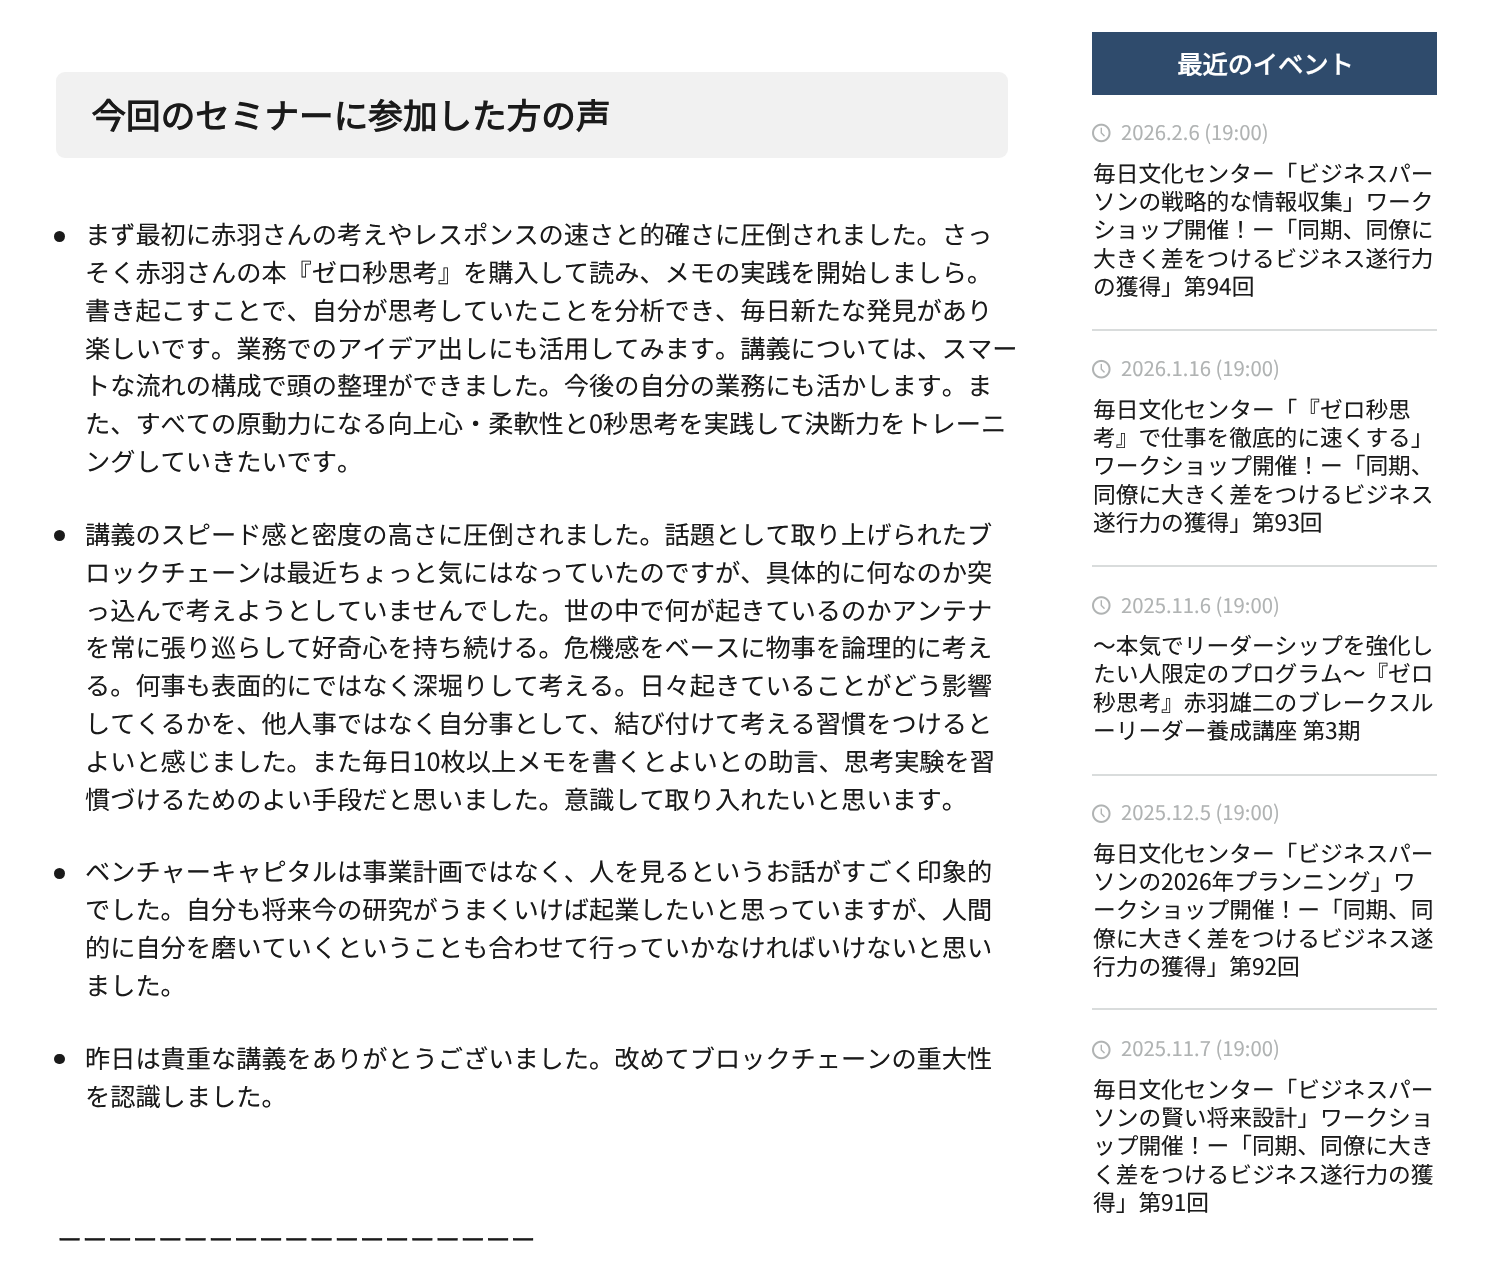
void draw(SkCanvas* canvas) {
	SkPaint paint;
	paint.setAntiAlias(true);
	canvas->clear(0xffffffff);
	paint.setColor(0xfff1f1f1);
	canvas->drawRoundRect(SkRect::MakeXYWH(56, 72, 952, 86), 9, 9, paint);
	SkFont f1(fontMgr->matchFamilyStyle("Noto Sans CJK JP", SkFontStyle::Bold()), 34.6);
	f1.setSubpixel(true);
	paint.setColor(0xff1a1a1a);
	canvas->drawString("今回のセミナーに参加した方の声", 91, 129, f1, paint);
	canvas->drawCircle(59.5, 236.5, 5.5, paint);
	SkFont f2(fontMgr->matchFamilyStyle("Noto Sans CJK JP", SkFontStyle::Normal()), 25.2);
	f2.setSubpixel(true);
	canvas->drawString("まず最初に赤羽さんの考えやレスポンスの速さと的確さに圧倒されました。さっ", 85, 244, f2, paint);
	canvas->drawString("そく赤羽さんの本『ゼロ秒思考』を購入して読み、メモの実践を開始しましら。", 85, 282, f2, paint);
	canvas->drawString("書き起こすことで、自分が思考していたことを分析でき、毎日新たな発見があり", 85, 320, f2, paint);
	canvas->drawString("楽しいです。業務でのアイデア出しにも活用してみます。講義については、スマー", 85, 358, f2, paint);
	canvas->drawString("トな流れの構成で頭の整理ができました。今後の自分の業務にも活かします。ま", 85, 395, f2, paint);
	canvas->drawString("た、すべての原動力になる向上心・柔軟性と0秒思考を実践して決断力をトレーニ", 85, 433, f2, paint);
	canvas->drawString("ングしていきたいです。", 85, 471, f2, paint);
	canvas->drawCircle(59.5, 535.5, 5.5, paint);
	canvas->drawString("講義のスピード感と密度の高さに圧倒されました。話題として取り上げられたブ", 85, 544, f2, paint);
	canvas->drawString("ロックチェーンは最近ちょっと気にはなっていたのですが、具体的に何なのか突", 85, 582, f2, paint);
	canvas->drawString("っ込んで考えようとしていませんでした。世の中で何が起きているのかアンテナ", 85, 620, f2, paint);
	canvas->drawString("を常に張り巡らして好奇心を持ち続ける。危機感をベースに物事を論理的に考え", 85, 657, f2, paint);
	canvas->drawString("る。何事も表面的にではなく深堀りして考える。日々起きていることがどう影響", 85, 695, f2, paint);
	canvas->drawString("してくるかを、他人事ではなく自分事として、結び付けて考える習慣をつけると", 85, 733, f2, paint);
	canvas->drawString("よいと感じました。また毎日10枚以上メモを書くとよいとの助言、思考実験を習", 85, 771, f2, paint);
	canvas->drawString("慣づけるためのよい手段だと思いました。意識して取り入れたいと思います。", 85, 809, f2, paint);
	canvas->drawCircle(59.5, 873.5, 5.5, paint);
	canvas->drawString("ベンチャーキャピタルは事業計画ではなく、人を見るというお話がすごく印象的", 85, 881, f2, paint);
	canvas->drawString("でした。自分も将来今の研究がうまくいけば起業したいと思っていますが、人間", 85, 919, f2, paint);
	canvas->drawString("的に自分を磨いていくということも合わせて行っていかなければいけないと思い", 85, 957, f2, paint);
	canvas->drawString("ました。", 85, 995, f2, paint);
	canvas->drawRoundRect(SkRect::MakeXYWH(54, 1054, 11, 10), 5, 5, paint);
	canvas->drawString("昨日は貴重な講義をありがとうございました。改めてブロックチェーンの重大性", 85, 1068, f2, paint);
	canvas->drawString("を認識しました。", 85, 1106, f2, paint);
	canvas->drawString("ーーーーーーーーーーーーーーーーーーー", 57, 1249, f2, paint);
	paint.setColor(0xff2f4b6c);
	canvas->drawRect(SkRect::MakeXYWH(1092, 32, 345, 63), paint);
	SkFont f3(fontMgr->matchFamilyStyle("Noto Sans CJK JP", SkFontStyle::Bold()), 25.2);
	f3.setSubpixel(true);
	paint.setColor(0xffffffff);
	canvas->drawString("最近のイベント", 1177, 74, f3, paint);
	paint.setColor(0xffd9dcdc);
	canvas->drawRect(SkRect::MakeXYWH(1092, 329, 345, 2), paint);
	canvas->drawImageRect(SkImages::DeferredFromEncodedData(SkData::MakeFromFileName("img1.png")), SkRect::MakeXYWH(1092, 123, 19, 20), SkSamplingOptions());
	SkFont f4(fontMgr->matchFamilyStyle("Noto Sans CJK JP", SkFontStyle::Normal()), 20.25);
	f4.setSubpixel(true);
	paint.setColor(0xffb0b3b3);
	canvas->drawString("2026.2.6 (19:00)", 1121, 140, f4, paint);
	SkFont f5(fontMgr->matchFamilyStyle("Noto Sans CJK JP", SkFontStyle::Normal()), 22.7);
	f5.setSubpixel(true);
	paint.setColor(0xff1a1a1a);
	canvas->drawString("毎日文化センター「ビジネスパー", 1093, 182, f5, paint);
	canvas->drawString("ソンの戦略的な情報収集」ワーク", 1093, 210, f5, paint);
	canvas->drawString("ショップ開催！ー「同期、同僚に", 1093, 238, f5, paint);
	canvas->drawString("大きく差をつけるビジネス遂行力", 1093, 267, f5, paint);
	canvas->drawString("の獲得」第94回", 1093, 295, f5, paint);
	paint.setColor(0xffd9dcdc);
	canvas->drawRect(SkRect::MakeXYWH(1092, 565, 345, 2), paint);
	canvas->drawImageRect(SkImages::DeferredFromEncodedData(SkData::MakeFromFileName("img2.png")), SkRect::MakeXYWH(1092, 359, 19, 20), SkSamplingOptions());
	paint.setColor(0xffb0b3b3);
	canvas->drawString("2026.1.16 (19:00)", 1121, 376, f4, paint);
	paint.setColor(0xff1a1a1a);
	canvas->drawString("毎日文化センター「『ゼロ秒思", 1093, 418, f5, paint);
	canvas->drawString("考』で仕事を徹底的に速くする」", 1093, 446, f5, paint);
	canvas->drawString("ワークショップ開催！ー「同期、", 1093, 474, f5, paint);
	canvas->drawString("同僚に大きく差をつけるビジネス", 1093, 503, f5, paint);
	canvas->drawString("遂行力の獲得」第93回", 1093, 531, f5, paint);
	paint.setColor(0xffd9dcdc);
	canvas->drawRect(SkRect::MakeXYWH(1092, 774, 345, 2), paint);
	canvas->drawImageRect(SkImages::DeferredFromEncodedData(SkData::MakeFromFileName("img3.png")), SkRect::MakeXYWH(1092, 596, 19, 19), SkSamplingOptions());
	paint.setColor(0xffb0b3b3);
	canvas->drawString("2025.11.6 (19:00)", 1121, 613, f4, paint);
	paint.setColor(0xff1a1a1a);
	canvas->drawString("～本気でリーダーシップを強化し", 1093, 654, f5, paint);
	canvas->drawString("たい人限定のプログラム～『ゼロ", 1093, 682, f5, paint);
	canvas->drawString("秒思考』赤羽雄二のブレークスル", 1093, 711, f5, paint);
	canvas->drawString("ーリーダー養成講座 第3期", 1093, 739, f5, paint);
	paint.setColor(0xffd9dcdc);
	canvas->drawRect(SkRect::MakeXYWH(1092, 1008, 345, 2), paint);
	canvas->drawImageRect(SkImages::DeferredFromEncodedData(SkData::MakeFromFileName("img4.png")), SkRect::MakeXYWH(1092, 804, 19, 19), SkSamplingOptions());
	paint.setColor(0xffb0b3b3);
	canvas->drawString("2025.12.5 (19:00)", 1121, 820, f4, paint);
	paint.setColor(0xff1a1a1a);
	canvas->drawString("毎日文化センター「ビジネスパー", 1093, 862, f5, paint);
	canvas->drawString("ソンの2026年プランニング」ワ", 1093, 890, f5, paint);
	canvas->drawString("ークショップ開催！ー「同期、同", 1093, 918, f5, paint);
	canvas->drawString("僚に大きく差をつけるビジネス遂", 1093, 947, f5, paint);
	canvas->drawString("行力の獲得」第92回", 1093, 975, f5, paint);
	canvas->drawImageRect(SkImages::DeferredFromEncodedData(SkData::MakeFromFileName("img1.png")), SkRect::MakeXYWH(1092, 1040, 19, 20), SkSamplingOptions());
	paint.setColor(0xffb0b3b3);
	canvas->drawString("2025.11.7 (19:00)", 1121, 1056, f4, paint);
	paint.setColor(0xff1a1a1a);
	canvas->drawString("毎日文化センター「ビジネスパー", 1093, 1098, f5, paint);
	canvas->drawString("ソンの賢い将来設計」ワークショ", 1093, 1126, f5, paint);
	canvas->drawString("ップ開催！ー「同期、同僚に大き", 1093, 1154, f5, paint);
	canvas->drawString("く差をつけるビジネス遂行力の獲", 1093, 1183, f5, paint);
	canvas->drawString("得」第91回", 1093, 1211, f5, paint);
}
